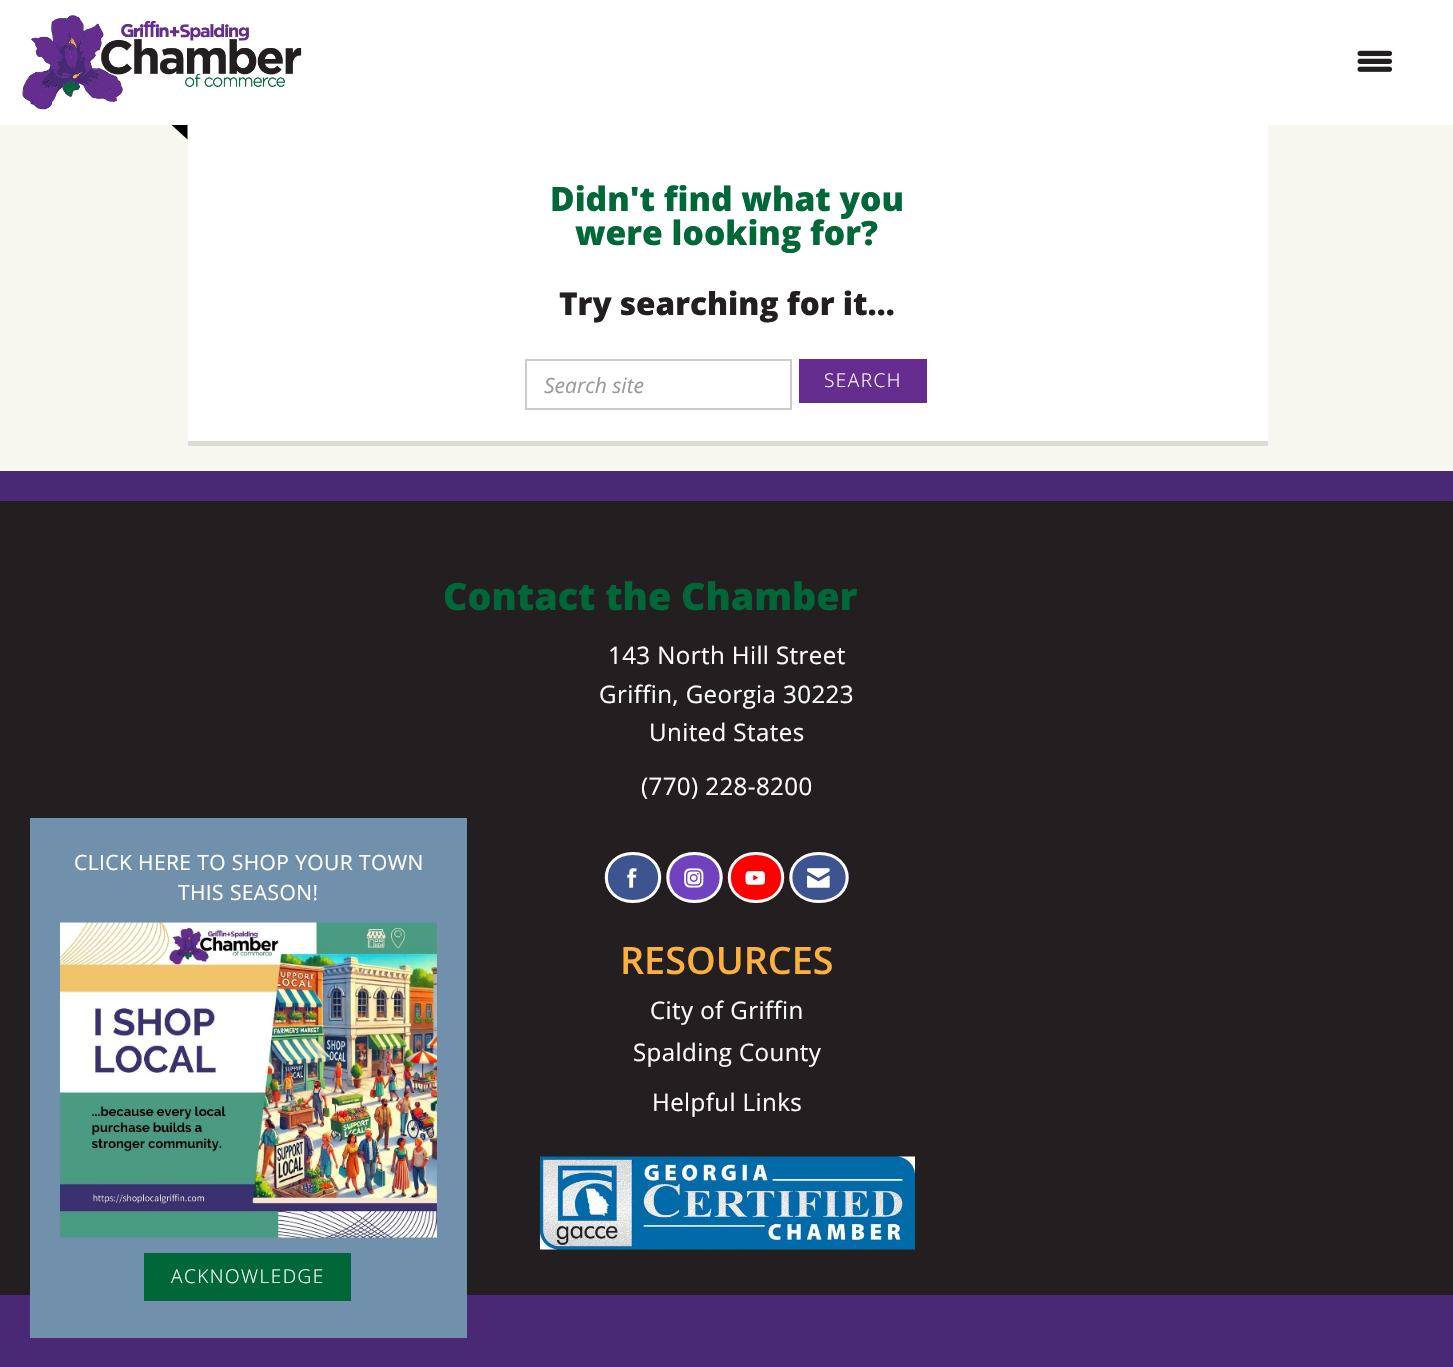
void draw(SkCanvas* canvas) {
	SkPaint paint;
	paint.setAntiAlias(true);
	auto spacedText = [&](const char* s, float x, float y, const SkFont& font, const SkPaint& ink, float letter, float word) {
		std::vector<SkGlyphID> glyphs(font.countText(s, strlen(s), SkTextEncoding::kUTF8));
		std::vector<float> xs(glyphs.size());
		font.textToGlyphs(s, strlen(s), SkTextEncoding::kUTF8, glyphs);
		font.getXPos(glyphs, xs, x);
		float extra = 0;
		for (size_t i = 0; i < glyphs.size(); i++) {
			xs[i] += extra;
			extra += letter + word * (glyphs[i] == font.unicharToGlyph(' '));
		}
		canvas->drawTextBlob(SkTextBlob::MakeFromPosHGlyphs(glyphs, xs, y, font), 0, 0, ink);
	};
	auto svgPath = [&](const char* data, bool evenOdd = false) {
		SkPath result = *SkParsePath::FromSVGString(data);
		if (evenOdd) result.setFillType(SkPathFillType::kEvenOdd);
		return result;
	};
	canvas->clear(0xfff7f7ef);
	paint.setColor(0xff000000);
	canvas->drawPath(svgPath("M171 124.5H187.5V139.5Z"), paint);
	paint.setColor(0xffffffff);
	canvas->drawRect(SkRect::MakeXYWH(0, 0, 1453, 125), paint);
	canvas->drawImageRect(SkImages::DeferredFromEncodedData(SkData::MakeFromFileName("img1.png")), SkRect::MakeXYWH(22, 15, 280, 95), SkSamplingOptions());
	canvas->drawImageRect(SkImages::DeferredFromEncodedData(SkData::MakeFromFileName("img2.png")), SkRect::MakeXYWH(1357, 50, 36, 22), SkSamplingOptions());
	paint.setColor(0xffdcdcd5);
	canvas->drawPath(svgPath("M188 441V446H1268V129V441Z"), paint);
	paint.setColor(0xffffffff);
	canvas->drawRect(SkRect::MakeXYWH(188, 125, 1080, 316), paint);
	SkFont f1(fontMgr->matchFamilyStyle("Open Sans", SkFontStyle(800, SkFontStyle::kNormal_Width, SkFontStyle::kUpright_Slant)), 33.6);
	f1.setSubpixel(true);
	paint.setColor(0xff006838);
	canvas->drawString("Didn't find what you", 550, 211, f1, paint);
	canvas->drawString("were looking for?", 575, 245, f1, paint);
	SkFont f2(fontMgr->matchFamilyStyle("Open Sans", SkFontStyle(800, SkFontStyle::kNormal_Width, SkFontStyle::kUpright_Slant)), 31.5);
	f2.setSubpixel(true);
	paint.setColor(0xff231f20);
	canvas->drawString("Try searching for it…", 559, 315, f2, paint);
	paint.setStroke(true);
	paint.setStrokeWidth(2);
	paint.setColor(0xffcccccc);
	canvas->drawRect(SkRect::MakeXYWH(526, 360, 265, 49), paint);
	SkFont f3(fontMgr->matchFamilyStyle("Open Sans", SkFontStyle::Italic()), 21);
	f3.setSubpixel(true);
	paint.setStroke(false);
	paint.setColor(0xff999999);
	canvas->drawString("Search site", 544, 393, f3, paint);
	paint.setColor(0xff662d91);
	canvas->drawRect(SkRect::MakeXYWH(799, 359, 128, 44), paint);
	SkFont f4(fontMgr->matchFamilyStyle("Open Sans", SkFontStyle(300, SkFontStyle::kNormal_Width, SkFontStyle::kUpright_Slant)), 19);
	f4.setSubpixel(true);
	paint.setColor(0xffffffff);
	spacedText("SEARCH", 824, 387, f4, paint, 1.5, 0);
	paint.setColor(0xff231f20);
	canvas->drawRect(SkRect::MakeXYWH(0, 501, 1453, 794), paint);
	paint.setColor(0xff492976);
	canvas->drawRect(SkRect::MakeXYWH(0, 1295, 1453, 72), paint);
	paint.setColor(0xff7090ab);
	canvas->drawRect(SkRect::MakeXYWH(30, 818, 437, 520), paint);
	SkFont f5(fontMgr->matchFamilyStyle("Open Sans", SkFontStyle::Normal()), 21);
	f5.setSubpixel(true);
	paint.setColor(0xffffffff);
	spacedText("CLICK HERE TO SHOP YOUR TOWN", 74, 870, f5, paint, 0.4, 0);
	spacedText("THIS SEASON!", 178, 900, f5, paint, 0.4, 0);
	canvas->drawImageRect(SkImages::DeferredFromEncodedData(SkData::MakeFromFileName("img3.png")), SkRect::MakeXYWH(60, 922, 377, 316), SkSamplingOptions());
	paint.setColor(0xff006838);
	canvas->drawRect(SkRect::MakeXYWH(144, 1253, 207, 48), paint);
	paint.setColor(0xffffffff);
	spacedText("ACKNOWLEDGE", 171, 1283, f4, paint, 1.5, 0);
	paint.setColor(0xff492976);
	canvas->drawRect(SkRect::MakeXYWH(0, 471, 1453, 30), paint);
	SkFont f6(fontMgr->matchFamilyStyle("Open Sans", SkFontStyle(800, SkFontStyle::kNormal_Width, SkFontStyle::kUpright_Slant)), 37.75);
	f6.setSubpixel(true);
	paint.setColor(0xff006838);
	canvas->drawString("Contact the Chamber", 443, 610, f6, paint);
	SkFont f7(fontMgr->matchFamilyStyle("Open Sans", SkFontStyle::Normal()), 24.1);
	f7.setSubpixel(true);
	paint.setColor(0xffffffff);
	spacedText("143 North Hill Street", 608, 664, f7, paint, 0.4, 0);
	spacedText("Griffin, Georgia 30223", 599, 703, f7, paint, 0.4, 0);
	spacedText("United States", 649, 741, f7, paint, 0.4, 0);
	spacedText("(770) 228-8200", 641, 795, f7, paint, 0.4, 0);
	paint.setColor(0xff3e5491);
	canvas->drawOval(SkRect::MakeXYWH(604.5, 852, 57, 51), paint);
	paint.setStroke(true);
	paint.setStrokeWidth(3);
	paint.setColor(0xffffffff);
	canvas->drawPath(svgPath("M633 853.5C668.5 853.5 668.5 901.5 633 901.5C597.5 901.5 597.5 853.5 633 853.5Z"), paint);
	canvas->drawImageRect(SkImages::DeferredFromEncodedData(SkData::MakeFromFileName("img4.png")), SkRect::MakeXYWH(627, 868, 10, 20), SkSamplingOptions());
	paint.setStroke(false);
	paint.setColor(0xff7042c0);
	canvas->drawOval(SkRect::MakeXYWH(666, 852, 57, 51), paint);
	paint.setStroke(true);
	paint.setColor(0xffffffff);
	canvas->drawPath(svgPath("M694.5 853.5C730 853.5 730 901.5 694.5 901.5C659 901.5 659 853.5 694.5 853.5Z"), paint);
	canvas->drawImageRect(SkImages::DeferredFromEncodedData(SkData::MakeFromFileName("img5.png")), SkRect::MakeXYWH(684, 868, 20, 20), SkSamplingOptions());
	paint.setStroke(false);
	paint.setColor(0xffff0000);
	canvas->drawOval(SkRect::MakeXYWH(727.5, 852, 57, 51), paint);
	paint.setStroke(true);
	paint.setColor(0xffffffff);
	canvas->drawPath(svgPath("M756 853.5C791.5 853.5 791.5 901.5 756 901.5C720.5 901.5 720.5 853.5 756 853.5Z"), paint);
	canvas->drawImageRect(SkImages::DeferredFromEncodedData(SkData::MakeFromFileName("img6.png")), SkRect::MakeXYWH(745, 871, 20, 14), SkSamplingOptions());
	paint.setStroke(false);
	paint.setColor(0xff3e5491);
	canvas->drawOval(SkRect::MakeXYWH(789, 852, 60, 51), paint);
	paint.setStroke(true);
	paint.setColor(0xffffffff);
	canvas->drawPath(svgPath("M819 853.5C856.5 853.5 856.5 901.5 819 901.5C781.5 901.5 781.5 853.5 819 853.5Z"), paint);
	canvas->drawImageRect(SkImages::DeferredFromEncodedData(SkData::MakeFromFileName("img7.png")), SkRect::MakeXYWH(807, 868, 23, 20), SkSamplingOptions());
	SkFont f8(fontMgr->matchFamilyStyle("Open Sans", SkFontStyle(600, SkFontStyle::kNormal_Width, SkFontStyle::kUpright_Slant)), 37.75);
	f8.setSubpixel(true);
	paint.setStroke(false);
	paint.setColor(0xfffbb040);
	canvas->drawString("RESOURCES", 620, 974, f8, paint);
	paint.setColor(0xffffffff);
	spacedText("City of Griffin", 650, 1019, f7, paint, 0.4, 0);
	spacedText("Spalding County", 633, 1061, f7, paint, 0.4, 0);
	spacedText("Helpful Links", 652, 1111, f7, paint, 0.4, 0);
	canvas->drawImageRect(SkImages::DeferredFromEncodedData(SkData::MakeFromFileName("img8.png")), SkRect::MakeXYWH(540, 1156, 375, 94), SkSamplingOptions());
}
